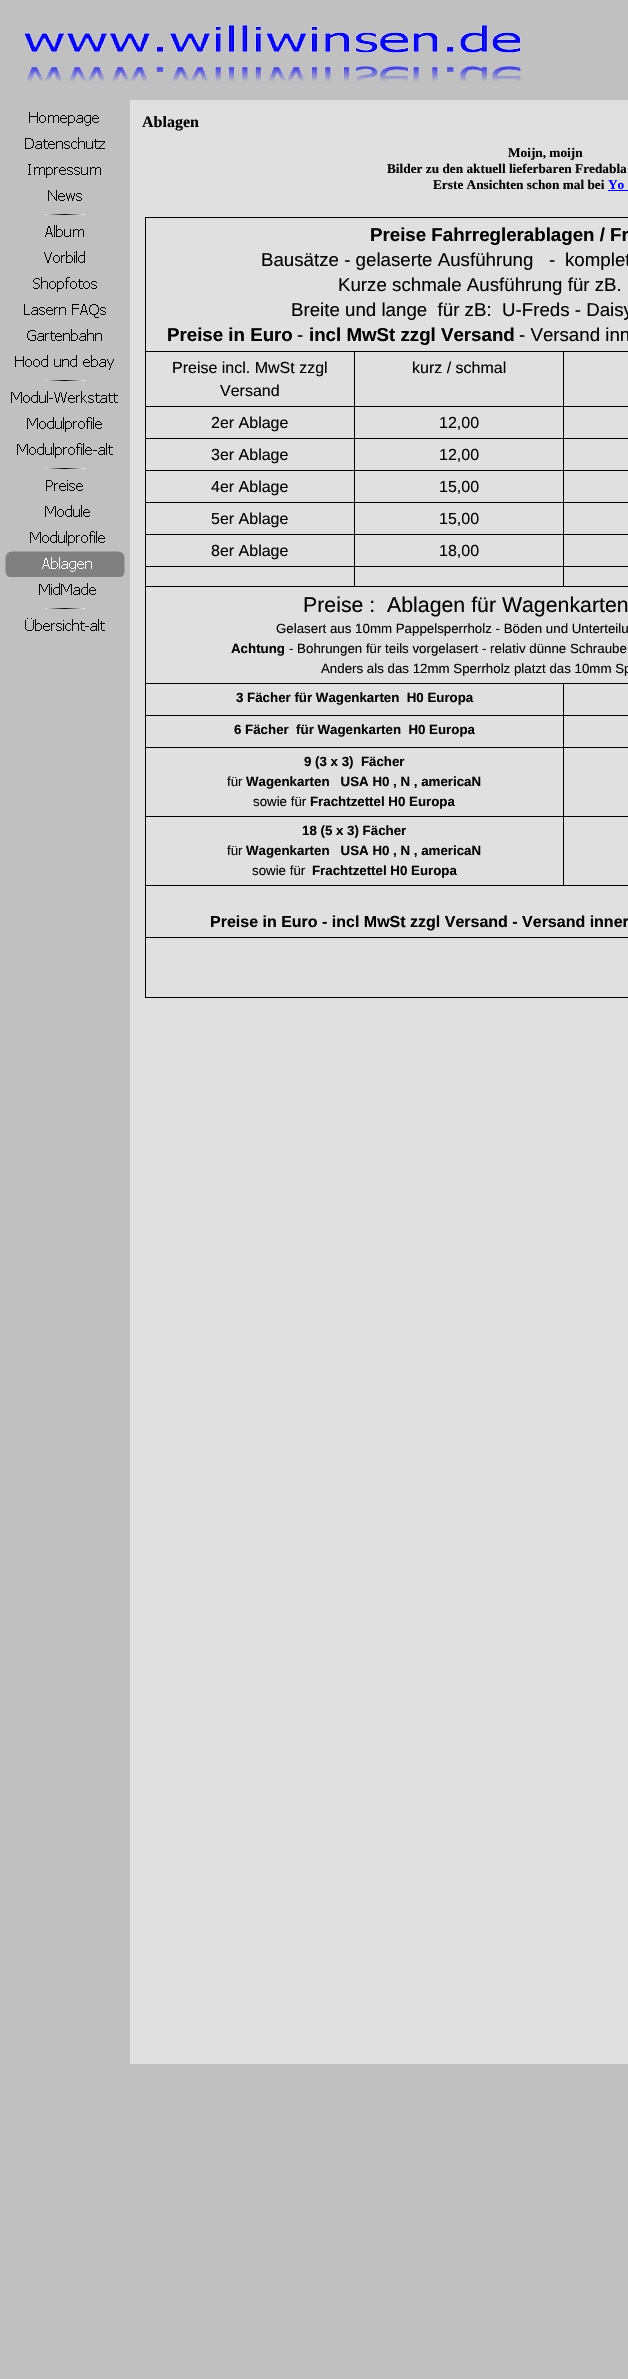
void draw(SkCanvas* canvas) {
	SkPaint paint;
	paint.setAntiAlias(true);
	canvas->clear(0xffc0c0c0);
	canvas->drawImageRect(SkImages::DeferredFromEncodedData(SkData::MakeFromFileName("img1.png")), SkRect::MakeXYWH(23, 23, 500, 59), SkSamplingOptions());
	canvas->drawImageRect(SkImages::DeferredFromEncodedData(SkData::MakeFromFileName("img2.png")), SkRect::MakeXYWH(29, 112, 70, 14), SkSamplingOptions());
	canvas->drawImageRect(SkImages::DeferredFromEncodedData(SkData::MakeFromFileName("img3.png")), SkRect::MakeXYWH(25, 137, 80, 12), SkSamplingOptions());
	canvas->drawImageRect(SkImages::DeferredFromEncodedData(SkData::MakeFromFileName("img4.png")), SkRect::MakeXYWH(28, 164, 73, 14), SkSamplingOptions());
	canvas->drawImageRect(SkImages::DeferredFromEncodedData(SkData::MakeFromFileName("img5.png")), SkRect::MakeXYWH(48, 190, 34, 11), SkSamplingOptions());
	canvas->drawImageRect(SkImages::DeferredFromEncodedData(SkData::MakeFromFileName("img6.png")), SkRect::MakeXYWH(45, 214, 40, 1), SkSamplingOptions());
	canvas->drawImageRect(SkImages::DeferredFromEncodedData(SkData::MakeFromFileName("img7.png")), SkRect::MakeXYWH(45, 225, 39, 12), SkSamplingOptions());
	canvas->drawImageRect(SkImages::DeferredFromEncodedData(SkData::MakeFromFileName("img8.png")), SkRect::MakeXYWH(44, 251, 41, 12), SkSamplingOptions());
	canvas->drawImageRect(SkImages::DeferredFromEncodedData(SkData::MakeFromFileName("img9.png")), SkRect::MakeXYWH(33, 277, 64, 15), SkSamplingOptions());
	canvas->drawImageRect(SkImages::DeferredFromEncodedData(SkData::MakeFromFileName("img10.png")), SkRect::MakeXYWH(24, 304, 82, 14), SkSamplingOptions());
	canvas->drawImageRect(SkImages::DeferredFromEncodedData(SkData::MakeFromFileName("img11.png")), SkRect::MakeXYWH(27, 329, 75, 12), SkSamplingOptions());
	canvas->drawImageRect(SkImages::DeferredFromEncodedData(SkData::MakeFromFileName("img12.png")), SkRect::MakeXYWH(15, 355, 99, 15), SkSamplingOptions());
	canvas->drawImageRect(SkImages::DeferredFromEncodedData(SkData::MakeFromFileName("img6.png")), SkRect::MakeXYWH(45, 380, 40, 1), SkSamplingOptions());
	canvas->drawImageRect(SkImages::DeferredFromEncodedData(SkData::MakeFromFileName("img13.png")), SkRect::MakeXYWH(11, 391, 107, 12), SkSamplingOptions());
	canvas->drawImageRect(SkImages::DeferredFromEncodedData(SkData::MakeFromFileName("img14.png")), SkRect::MakeXYWH(27, 417, 75, 15), SkSamplingOptions());
	canvas->drawImageRect(SkImages::DeferredFromEncodedData(SkData::MakeFromFileName("img15.png")), SkRect::MakeXYWH(17, 443, 96, 15), SkSamplingOptions());
	canvas->drawImageRect(SkImages::DeferredFromEncodedData(SkData::MakeFromFileName("img6.png")), SkRect::MakeXYWH(45, 468, 40, 1), SkSamplingOptions());
	canvas->drawImageRect(SkImages::DeferredFromEncodedData(SkData::MakeFromFileName("img16.png")), SkRect::MakeXYWH(46, 480, 37, 11), SkSamplingOptions());
	canvas->drawImageRect(SkImages::DeferredFromEncodedData(SkData::MakeFromFileName("img17.png")), SkRect::MakeXYWH(45, 505, 45, 12), SkSamplingOptions());
	canvas->drawImageRect(SkImages::DeferredFromEncodedData(SkData::MakeFromFileName("img14.png")), SkRect::MakeXYWH(30, 531, 75, 15), SkSamplingOptions());
	canvas->drawImageRect(SkImages::DeferredFromEncodedData(SkData::MakeFromFileName("img18.png")), SkRect::MakeXYWH(5, 551, 120, 26), SkSamplingOptions());
	canvas->drawImageRect(SkImages::DeferredFromEncodedData(SkData::MakeFromFileName("img19.png")), SkRect::MakeXYWH(39, 583, 57, 12), SkSamplingOptions());
	canvas->drawImageRect(SkImages::DeferredFromEncodedData(SkData::MakeFromFileName("img6.png")), SkRect::MakeXYWH(45, 608, 40, 1), SkSamplingOptions());
	canvas->drawImageRect(SkImages::DeferredFromEncodedData(SkData::MakeFromFileName("img20.png")), SkRect::MakeXYWH(25, 618, 80, 13), SkSamplingOptions());
	paint.setColor(0xffe0e0e0);
	canvas->drawRect(SkRect::MakeXYWH(130, 100, 498, 1964), paint);
	SkFont f1(fontMgr->matchFamilyStyle("Liberation Serif", SkFontStyle::Bold()), 16);
	f1.setSubpixel(true);
	paint.setColor(0xff000000);
	canvas->drawString("Ablagen", 142, 127, f1, paint);
	SkFont f2(fontMgr->matchFamilyStyle("Liberation Serif", SkFontStyle::Bold()), 13.3);
	f2.setSubpixel(true);
	canvas->drawString("Moijn, moijn", 508, 157, f2, paint);
	canvas->drawString("Bilder zu den aktuell lieferbaren Fredabla", 387, 173, f2, paint);
	canvas->drawString("Erste Ansichten schon mal bei", 433, 189, f2, paint);
	paint.setColor(0xff0000ee);
	canvas->drawString("Yo", 608, 189, f2, paint);
	canvas->drawRect(SkRect::MakeXYWH(608, 190, 20, 1), paint);
	paint.setColor(0xff000000);
	canvas->drawRect(SkRect::MakeXYWH(145, 217, 483, 1), paint);
	canvas->drawRect(SkRect::MakeXYWH(563, 351, 65, 1), paint);
	canvas->drawRect(SkRect::MakeXYWH(563, 406, 65, 1), paint);
	canvas->drawRect(SkRect::MakeXYWH(563, 438, 65, 1), paint);
	canvas->drawRect(SkRect::MakeXYWH(563, 470, 65, 1), paint);
	canvas->drawRect(SkRect::MakeXYWH(563, 502, 65, 1), paint);
	canvas->drawRect(SkRect::MakeXYWH(563, 534, 65, 1), paint);
	canvas->drawRect(SkRect::MakeXYWH(563, 566, 65, 1), paint);
	canvas->drawRect(SkRect::MakeXYWH(145, 586, 483, 1), paint);
	canvas->drawRect(SkRect::MakeXYWH(563, 566, 1, 21), paint);
	canvas->drawRect(SkRect::MakeXYWH(354, 566, 210, 1), paint);
	canvas->drawRect(SkRect::MakeXYWH(563, 534, 1, 33), paint);
	canvas->drawRect(SkRect::MakeXYWH(354, 534, 210, 1), paint);
	canvas->drawRect(SkRect::MakeXYWH(563, 502, 1, 33), paint);
	canvas->drawRect(SkRect::MakeXYWH(354, 502, 210, 1), paint);
	canvas->drawRect(SkRect::MakeXYWH(563, 470, 1, 33), paint);
	canvas->drawRect(SkRect::MakeXYWH(354, 470, 210, 1), paint);
	canvas->drawRect(SkRect::MakeXYWH(563, 438, 1, 33), paint);
	canvas->drawRect(SkRect::MakeXYWH(354, 438, 210, 1), paint);
	canvas->drawRect(SkRect::MakeXYWH(563, 406, 1, 33), paint);
	canvas->drawRect(SkRect::MakeXYWH(354, 406, 210, 1), paint);
	canvas->drawRect(SkRect::MakeXYWH(563, 351, 1, 56), paint);
	canvas->drawRect(SkRect::MakeXYWH(354, 351, 210, 1), paint);
	canvas->drawRect(SkRect::MakeXYWH(354, 566, 1, 21), paint);
	canvas->drawRect(SkRect::MakeXYWH(145, 566, 210, 1), paint);
	canvas->drawRect(SkRect::MakeXYWH(354, 534, 1, 33), paint);
	canvas->drawRect(SkRect::MakeXYWH(145, 534, 210, 1), paint);
	canvas->drawRect(SkRect::MakeXYWH(354, 502, 1, 33), paint);
	canvas->drawRect(SkRect::MakeXYWH(145, 502, 210, 1), paint);
	canvas->drawRect(SkRect::MakeXYWH(354, 470, 1, 33), paint);
	canvas->drawRect(SkRect::MakeXYWH(145, 470, 210, 1), paint);
	canvas->drawRect(SkRect::MakeXYWH(354, 438, 1, 33), paint);
	canvas->drawRect(SkRect::MakeXYWH(145, 438, 210, 1), paint);
	canvas->drawRect(SkRect::MakeXYWH(354, 406, 1, 33), paint);
	canvas->drawRect(SkRect::MakeXYWH(145, 406, 210, 1), paint);
	canvas->drawRect(SkRect::MakeXYWH(354, 351, 1, 56), paint);
	canvas->drawRect(SkRect::MakeXYWH(145, 351, 210, 1), paint);
	canvas->drawRect(SkRect::MakeXYWH(563, 683, 65, 1), paint);
	canvas->drawRect(SkRect::MakeXYWH(563, 715, 65, 1), paint);
	canvas->drawRect(SkRect::MakeXYWH(563, 747, 65, 1), paint);
	canvas->drawRect(SkRect::MakeXYWH(563, 816, 65, 1), paint);
	canvas->drawRect(SkRect::MakeXYWH(145, 885, 483, 1), paint);
	canvas->drawRect(SkRect::MakeXYWH(563, 816, 1, 70), paint);
	canvas->drawRect(SkRect::MakeXYWH(145, 816, 419, 1), paint);
	canvas->drawRect(SkRect::MakeXYWH(563, 747, 1, 70), paint);
	canvas->drawRect(SkRect::MakeXYWH(145, 747, 419, 1), paint);
	canvas->drawRect(SkRect::MakeXYWH(563, 715, 1, 33), paint);
	canvas->drawRect(SkRect::MakeXYWH(145, 715, 419, 1), paint);
	canvas->drawRect(SkRect::MakeXYWH(563, 683, 1, 33), paint);
	canvas->drawRect(SkRect::MakeXYWH(145, 683, 419, 1), paint);
	canvas->drawRect(SkRect::MakeXYWH(145, 937, 483, 1), paint);
	canvas->drawRect(SkRect::MakeXYWH(145, 997, 483, 1), paint);
	canvas->drawRect(SkRect::MakeXYWH(145, 937, 1, 61), paint);
	canvas->drawRect(SkRect::MakeXYWH(145, 885, 1, 53), paint);
	canvas->drawRect(SkRect::MakeXYWH(145, 816, 1, 70), paint);
	canvas->drawRect(SkRect::MakeXYWH(145, 747, 1, 70), paint);
	canvas->drawRect(SkRect::MakeXYWH(145, 715, 1, 33), paint);
	canvas->drawRect(SkRect::MakeXYWH(145, 683, 1, 33), paint);
	canvas->drawRect(SkRect::MakeXYWH(145, 586, 1, 98), paint);
	canvas->drawRect(SkRect::MakeXYWH(145, 566, 1, 21), paint);
	canvas->drawRect(SkRect::MakeXYWH(145, 534, 1, 33), paint);
	canvas->drawRect(SkRect::MakeXYWH(145, 502, 1, 33), paint);
	canvas->drawRect(SkRect::MakeXYWH(145, 470, 1, 33), paint);
	canvas->drawRect(SkRect::MakeXYWH(145, 438, 1, 33), paint);
	canvas->drawRect(SkRect::MakeXYWH(145, 406, 1, 33), paint);
	canvas->drawRect(SkRect::MakeXYWH(145, 351, 1, 56), paint);
	canvas->drawRect(SkRect::MakeXYWH(145, 217, 1, 135), paint);
	SkFont f3(fontMgr->matchFamilyStyle("Liberation Sans", SkFontStyle::Bold()), 18.7);
	f3.setSubpixel(true);
	canvas->drawString("Preise Fahrreglerablagen / Fr", 370, 241, f3, paint);
	SkFont f4(fontMgr->matchFamilyStyle("Liberation Sans", SkFontStyle::Normal()), 18.7);
	f4.setSubpixel(true);
	canvas->drawString("Bausätze - gelaserte Ausführung   -", 261, 266, f4, paint);
	canvas->drawString("komplet", 565, 266, f4, paint);
	canvas->drawString("Kurze schmale Ausführung für zB.", 338, 291, f4, paint);
	canvas->drawString("Breite und lange  für zB:  U-Freds - Daisy", 291, 316, f4, paint);
	canvas->drawString("Preise in Euro", 167, 341, f3, paint);
	canvas->drawString("-", 297, 341, f4, paint);
	canvas->drawString("incl MwSt zzgl Versand", 309, 341, f3, paint);
	canvas->drawString("- Versand inn", 519, 341, f4, paint);
	SkFont f5(fontMgr->matchFamilyStyle("Liberation Sans", SkFontStyle::Normal()), 16);
	f5.setSubpixel(true);
	canvas->drawString("Preise incl. MwSt zzgl", 172, 373, f5, paint);
	canvas->drawString("Versand", 220, 396, f5, paint);
	canvas->drawString("kurz / schmal", 412, 373, f5, paint);
	canvas->drawString("2er Ablage", 211, 428, f5, paint);
	canvas->drawString("12,00", 439, 428, f5, paint);
	canvas->drawString("3er Ablage", 211, 460, f5, paint);
	canvas->drawString("12,00", 439, 460, f5, paint);
	canvas->drawString("4er Ablage", 211, 492, f5, paint);
	canvas->drawString("15,00", 439, 492, f5, paint);
	canvas->drawString("5er Ablage", 211, 524, f5, paint);
	canvas->drawString("15,00", 439, 524, f5, paint);
	canvas->drawString("8er Ablage", 211, 556, f5, paint);
	canvas->drawString("18,00", 439, 556, f5, paint);
	SkFont f6(fontMgr->matchFamilyStyle("Liberation Sans", SkFontStyle::Normal()), 21.3);
	f6.setSubpixel(true);
	canvas->drawString("Preise :  Ablagen für Wagenkarten", 303, 612, f6, paint);
	SkFont f7(fontMgr->matchFamilyStyle("Liberation Sans", SkFontStyle::Normal()), 13.3);
	f7.setSubpixel(true);
	canvas->drawString("Gelasert aus 10mm Pappelsperrholz - Böden und Unterteilu", 276, 633, f7, paint);
	SkFont f8(fontMgr->matchFamilyStyle("Liberation Sans", SkFontStyle::Bold()), 13.3);
	f8.setSubpixel(true);
	canvas->drawString("Achtung", 231, 653, f8, paint);
	canvas->drawString("- Bohrungen für teils vorgelasert - relativ dünne Schraube", 289, 653, f7, paint);
	canvas->drawString("Anders als das 12mm Sperrholz platzt das 10mm Sp", 321, 673, f7, paint);
	canvas->drawString("3 Fächer für Wagenkarten  H0 Europa", 236, 702, f8, paint);
	canvas->drawString("6 Fächer  für Wagenkarten  H0 Europa", 234, 734, f8, paint);
	canvas->drawString("9 (3 x 3)  Fächer", 304, 766, f8, paint);
	canvas->drawString("für", 227, 786, f7, paint);
	canvas->drawString("Wagenkarten   USA H0 , N , americaN", 246, 786, f8, paint);
	canvas->drawString("sowie für", 253, 806, f7, paint);
	canvas->drawString("Frachtzettel H0 Europa", 310, 806, f8, paint);
	canvas->drawString("18 (5 x 3) Fächer", 302, 835, f8, paint);
	canvas->drawString("für", 227, 855, f7, paint);
	canvas->drawString("Wagenkarten   USA H0 , N , americaN", 246, 855, f8, paint);
	canvas->drawString("sowie für", 252, 875, f7, paint);
	canvas->drawString("Frachtzettel H0 Europa", 312, 875, f8, paint);
	SkFont f9(fontMgr->matchFamilyStyle("Liberation Sans", SkFontStyle::Bold()), 16);
	f9.setSubpixel(true);
	canvas->drawString("Preise in Euro - incl MwSt zzgl Versand - Versand inner", 210, 927, f9, paint);
}
